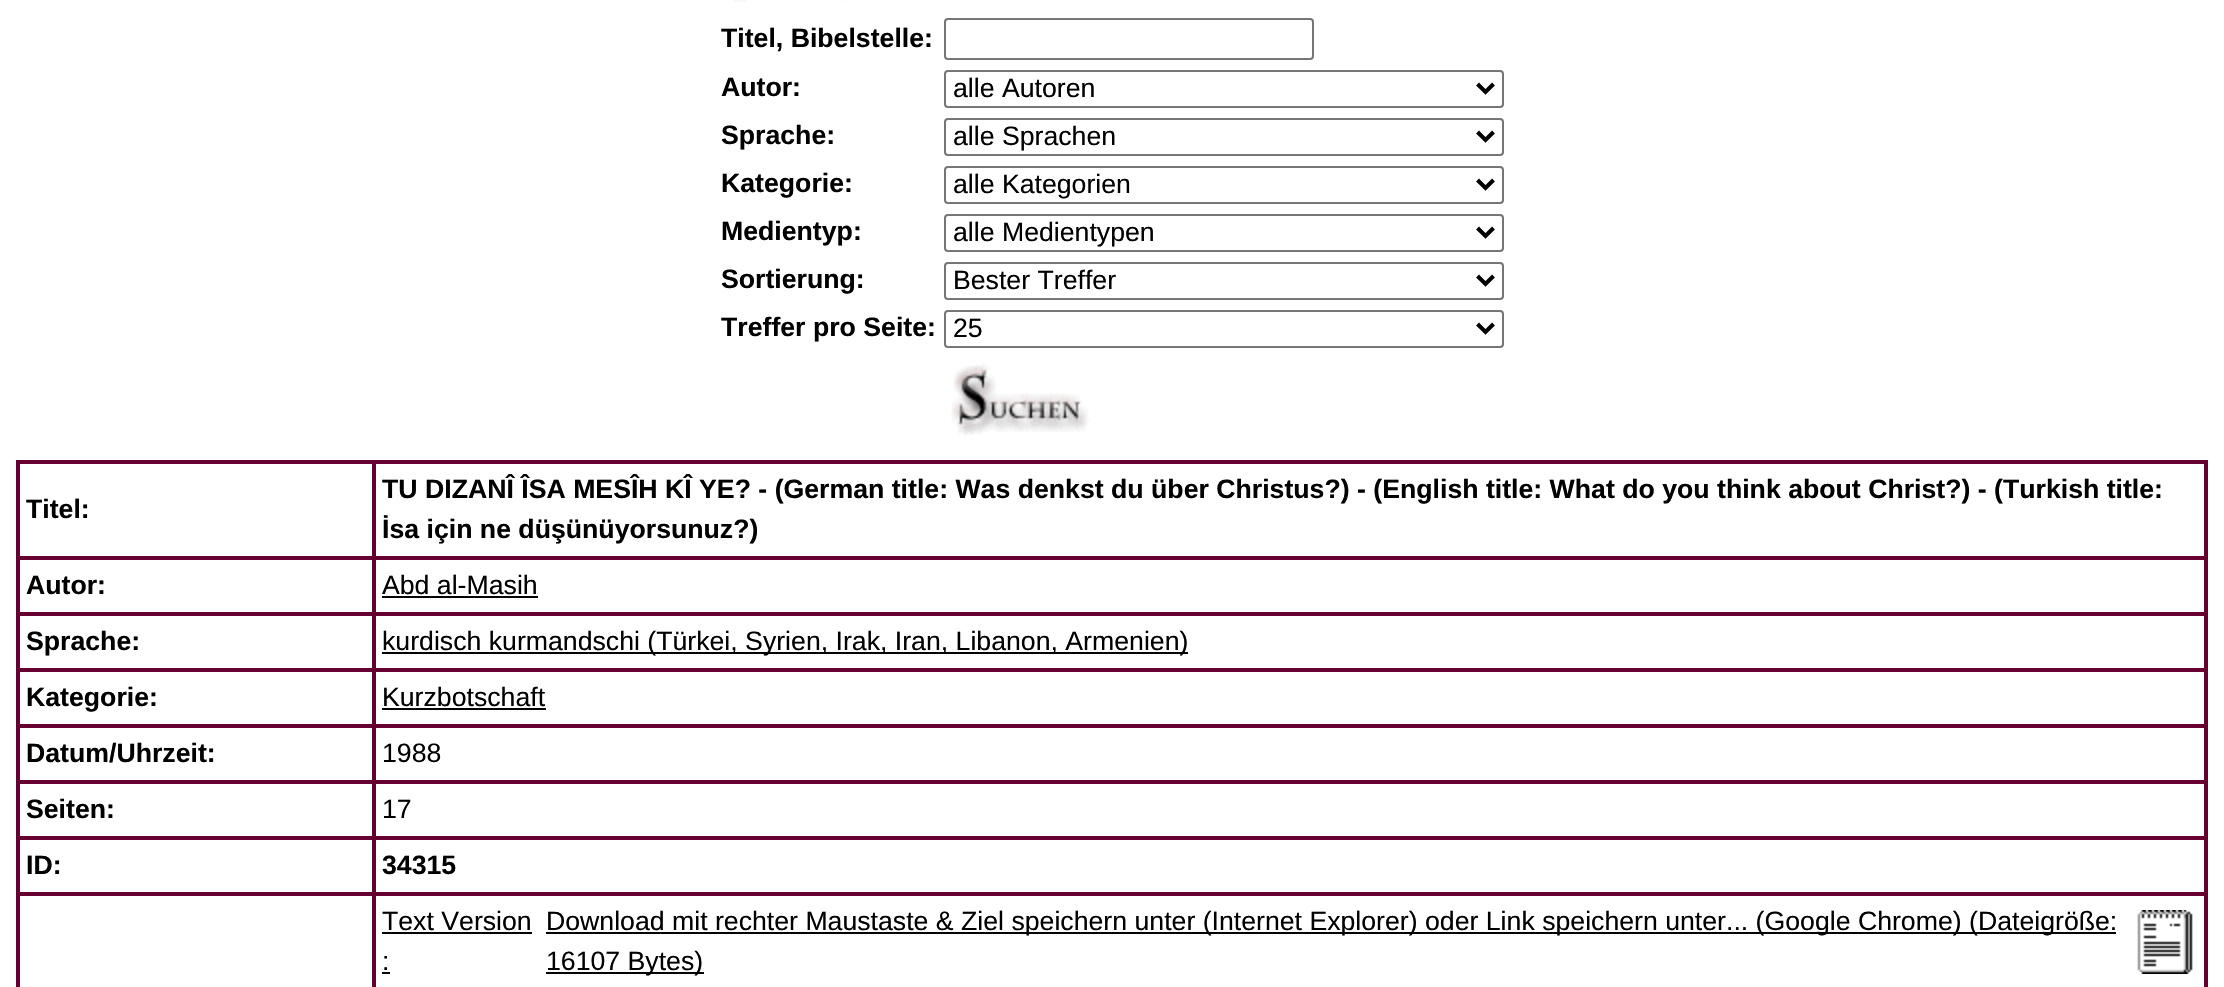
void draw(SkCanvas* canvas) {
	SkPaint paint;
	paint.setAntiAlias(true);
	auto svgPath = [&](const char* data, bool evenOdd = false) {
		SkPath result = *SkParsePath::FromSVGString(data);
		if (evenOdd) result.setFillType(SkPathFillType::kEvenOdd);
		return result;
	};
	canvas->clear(0xffffffff);
	canvas->drawImageRect(SkImages::DeferredFromEncodedData(SkData::MakeFromFileName("img1.png")), SkRect::MakeXYWH(734, 0, 110, 2), SkSamplingOptions());
	SkFont f1(fontMgr->matchFamilyStyle("Liberation Sans", SkFontStyle::Bold()), 26.67);
	f1.setSubpixel(true);
	paint.setColor(0xff000000);
	canvas->drawString("Titel, Bibelstelle:", 721, 47, f1, paint);
	paint.setStroke(true);
	paint.setStrokeWidth(2);
	paint.setColor(0xff767676);
	canvas->drawRoundRect(SkRect::MakeXYWH(945, 19, 368, 40), 3, 3, paint);
	paint.setStroke(false);
	paint.setColor(0xff000000);
	canvas->drawString("Autor:", 721, 96, f1, paint);
	paint.setStroke(true);
	paint.setColor(0xff767676);
	canvas->drawRoundRect(SkRect::MakeXYWH(945, 71, 558, 36), 3, 3, paint);
	paint.setStrokeWidth(4);
	paint.setColor(0xff000000);
	canvas->drawPath(svgPath("M1477.5 84L1485.5 92L1493.5 84"), paint);
	SkFont f2(fontMgr->matchFamilyStyle("Liberation Sans", SkFontStyle::Normal()), 26.67);
	f2.setSubpixel(true);
	paint.setStroke(false);
	canvas->drawString("alle Autoren", 953, 97, f2, paint);
	canvas->drawString("Sprache:", 721, 144, f1, paint);
	paint.setStroke(true);
	paint.setStrokeWidth(2);
	paint.setColor(0xff767676);
	canvas->drawRoundRect(SkRect::MakeXYWH(945, 119, 558, 36), 3, 3, paint);
	paint.setStrokeWidth(4);
	paint.setColor(0xff000000);
	canvas->drawPath(svgPath("M1477.5 132L1485.5 140L1493.5 132"), paint);
	paint.setStroke(false);
	canvas->drawString("alle Sprachen", 953, 145, f2, paint);
	canvas->drawString("Kategorie:", 721, 192, f1, paint);
	paint.setStroke(true);
	paint.setStrokeWidth(2);
	paint.setColor(0xff767676);
	canvas->drawRoundRect(SkRect::MakeXYWH(945, 167, 558, 36), 3, 3, paint);
	paint.setStrokeWidth(4);
	paint.setColor(0xff000000);
	canvas->drawPath(svgPath("M1477.5 180L1485.5 188L1493.5 180"), paint);
	paint.setStroke(false);
	canvas->drawString("alle Kategorien", 953, 193, f2, paint);
	canvas->drawString("Medientyp:", 721, 240, f1, paint);
	paint.setStroke(true);
	paint.setStrokeWidth(2);
	paint.setColor(0xff767676);
	canvas->drawRoundRect(SkRect::MakeXYWH(945, 215, 558, 36), 3, 3, paint);
	paint.setStrokeWidth(4);
	paint.setColor(0xff000000);
	canvas->drawPath(svgPath("M1477.5 228L1485.5 236L1493.5 228"), paint);
	paint.setStroke(false);
	canvas->drawString("alle Medientypen", 953, 241, f2, paint);
	canvas->drawString("Sortierung:", 721, 288, f1, paint);
	paint.setStroke(true);
	paint.setStrokeWidth(2);
	paint.setColor(0xff767676);
	canvas->drawRoundRect(SkRect::MakeXYWH(945, 263, 558, 36), 3, 3, paint);
	paint.setStrokeWidth(4);
	paint.setColor(0xff000000);
	canvas->drawPath(svgPath("M1477.5 276L1485.5 284L1493.5 276"), paint);
	paint.setStroke(false);
	canvas->drawString("Bester Treffer", 953, 289, f2, paint);
	canvas->drawString("Treffer pro Seite:", 721, 336, f1, paint);
	paint.setStroke(true);
	paint.setStrokeWidth(2);
	paint.setColor(0xff767676);
	canvas->drawRoundRect(SkRect::MakeXYWH(945, 311, 558, 36), 3, 3, paint);
	paint.setStrokeWidth(4);
	paint.setColor(0xff000000);
	canvas->drawPath(svgPath("M1477.5 324L1485.5 332L1493.5 324"), paint);
	paint.setStroke(false);
	canvas->drawString("25", 953, 337, f2, paint);
	canvas->drawImageRect(SkImages::DeferredFromEncodedData(SkData::MakeFromFileName("img2.png")), SkRect::MakeXYWH(950, 364, 140, 72), SkSamplingOptions());
	paint.setStroke(true);
	paint.setStrokeWidth(2);
	paint.setColor(0xff660033);
	canvas->drawRect(SkRect::MakeXYWH(17, 461, 2190, 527), paint);
	canvas->drawRect(SkRect::MakeXYWH(19, 463, 354, 94), paint);
	paint.setStroke(false);
	paint.setColor(0xff000000);
	canvas->drawString("Titel:", 26, 518, f1, paint);
	paint.setStroke(true);
	paint.setColor(0xff660033);
	canvas->drawRect(SkRect::MakeXYWH(375, 463, 1830, 94), paint);
	paint.setStroke(false);
	paint.setColor(0xff000000);
	canvas->drawString("TU DIZANÎ ÎSA MESÎH KÎ YE? - (German title: Was denkst du über Christus?) - (English title: What do you think about Christ?) - (Turkish title:", 382, 498, f1, paint);
	canvas->drawString("İsa için ne düşünüyorsunuz?)", 382, 538, f1, paint);
	paint.setStroke(true);
	paint.setColor(0xff660033);
	canvas->drawRect(SkRect::MakeXYWH(19, 559, 354, 54), paint);
	paint.setStroke(false);
	paint.setColor(0xff000000);
	canvas->drawString("Autor:", 26, 594, f1, paint);
	paint.setStroke(true);
	paint.setColor(0xff660033);
	canvas->drawRect(SkRect::MakeXYWH(375, 559, 1830, 54), paint);
	paint.setStroke(false);
	paint.setColor(0xff000000);
	canvas->drawString("Abd al-Masih", 382, 594, f2, paint);
	canvas->drawRect(SkRect::MakeXYWH(382, 596, 156, 2), paint);
	paint.setStroke(true);
	paint.setColor(0xff660033);
	canvas->drawRect(SkRect::MakeXYWH(19, 615, 354, 54), paint);
	paint.setStroke(false);
	paint.setColor(0xff000000);
	canvas->drawString("Sprache:", 26, 650, f1, paint);
	paint.setStroke(true);
	paint.setColor(0xff660033);
	canvas->drawRect(SkRect::MakeXYWH(375, 615, 1830, 54), paint);
	paint.setStroke(false);
	paint.setColor(0xff000000);
	canvas->drawRect(SkRect::MakeXYWH(382, 652, 806, 2), paint);
	canvas->drawString("kurdisch kurmandschi (Türkei, Syrien, Irak, Iran, Libanon, Armenien)", 382, 650, f2, paint);
	paint.setStroke(true);
	paint.setColor(0xff660033);
	canvas->drawRect(SkRect::MakeXYWH(19, 671, 354, 54), paint);
	paint.setStroke(false);
	paint.setColor(0xff000000);
	canvas->drawString("Kategorie:", 26, 706, f1, paint);
	paint.setStroke(true);
	paint.setColor(0xff660033);
	canvas->drawRect(SkRect::MakeXYWH(375, 671, 1830, 54), paint);
	paint.setStroke(false);
	paint.setColor(0xff000000);
	canvas->drawString("Kurzbotschaft", 382, 706, f2, paint);
	canvas->drawRect(SkRect::MakeXYWH(382, 708, 164, 2), paint);
	paint.setStroke(true);
	paint.setColor(0xff660033);
	canvas->drawRect(SkRect::MakeXYWH(19, 727, 354, 54), paint);
	paint.setStroke(false);
	paint.setColor(0xff000000);
	canvas->drawString("Datum/Uhrzeit:", 26, 762, f1, paint);
	paint.setStroke(true);
	paint.setColor(0xff660033);
	canvas->drawRect(SkRect::MakeXYWH(375, 727, 1830, 54), paint);
	paint.setStroke(false);
	paint.setColor(0xff000000);
	canvas->drawString("1988", 382, 762, f2, paint);
	paint.setStroke(true);
	paint.setColor(0xff660033);
	canvas->drawRect(SkRect::MakeXYWH(19, 783, 354, 54), paint);
	paint.setStroke(false);
	paint.setColor(0xff000000);
	canvas->drawString("Seiten:", 26, 818, f1, paint);
	paint.setStroke(true);
	paint.setColor(0xff660033);
	canvas->drawRect(SkRect::MakeXYWH(375, 783, 1830, 54), paint);
	paint.setStroke(false);
	paint.setColor(0xff000000);
	canvas->drawString("17", 382, 818, f2, paint);
	paint.setStroke(true);
	paint.setColor(0xff660033);
	canvas->drawRect(SkRect::MakeXYWH(19, 839, 354, 54), paint);
	paint.setStroke(false);
	paint.setColor(0xff000000);
	canvas->drawString("ID:", 26, 874, f1, paint);
	paint.setStroke(true);
	paint.setColor(0xff660033);
	canvas->drawRect(SkRect::MakeXYWH(375, 839, 1830, 54), paint);
	paint.setStroke(false);
	paint.setColor(0xff000000);
	canvas->drawString("34315", 382, 874, f1, paint);
	paint.setStroke(true);
	paint.setColor(0xff660033);
	canvas->drawRect(SkRect::MakeXYWH(19, 895, 354, 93), paint);
	canvas->drawRect(SkRect::MakeXYWH(375, 895, 1830, 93), paint);
	paint.setStroke(false);
	paint.setColor(0xff000000);
	canvas->drawString("Text Version", 382, 930, f2, paint);
	canvas->drawRect(SkRect::MakeXYWH(382, 932, 150, 2), paint);
	canvas->drawString(":", 382, 970, f2, paint);
	canvas->drawRect(SkRect::MakeXYWH(382, 972, 8, 2), paint);
	canvas->drawRect(SkRect::MakeXYWH(546, 932, 1570, 2), paint);
	canvas->drawString("Download mit rechter Maustaste & Ziel speichern unter (Internet Explorer) oder Link speichern unter... (Google Chrome) (Dateigröße:", 546, 930, f2, paint);
	canvas->drawRect(SkRect::MakeXYWH(546, 972, 158, 2), paint);
	canvas->drawString("16107 Bytes)", 546, 970, f2, paint);
	canvas->drawImageRect(SkImages::DeferredFromEncodedData(SkData::MakeFromFileName("img3.png")), SkRect::MakeXYWH(2137, 910, 56, 64), SkSamplingOptions());
}
